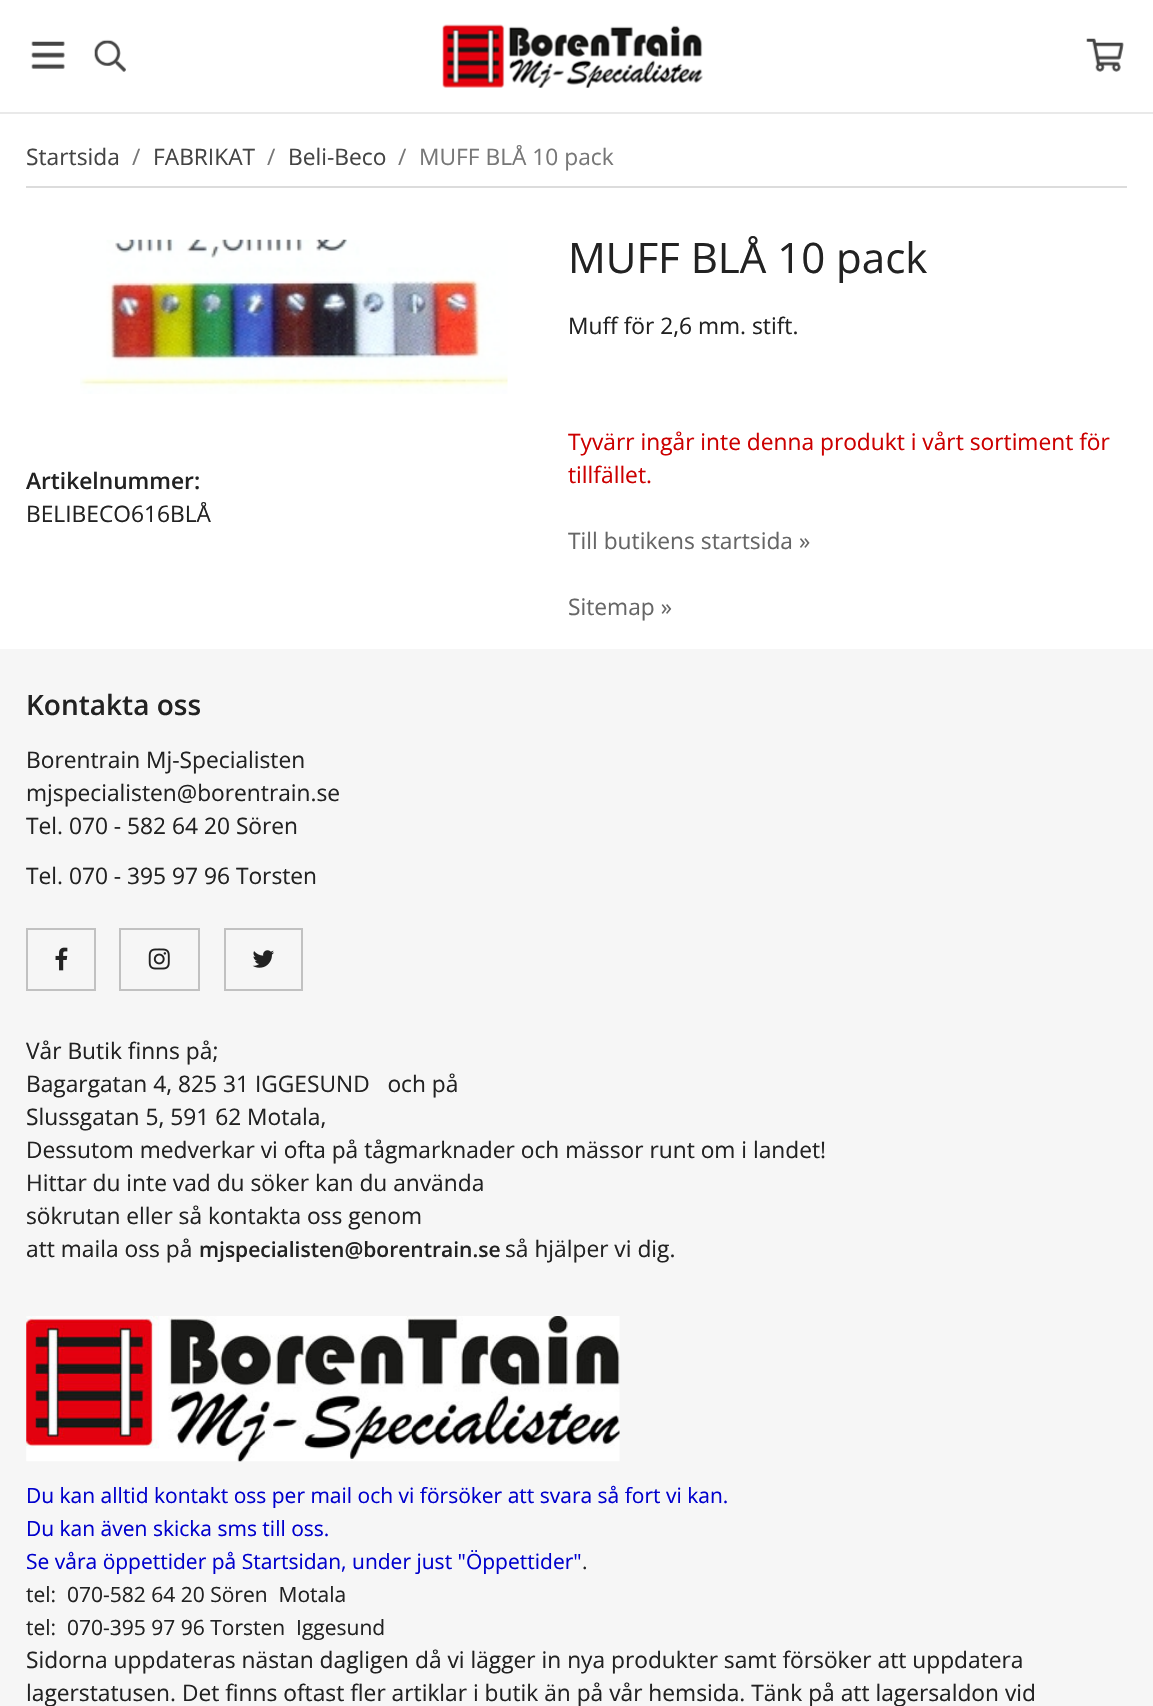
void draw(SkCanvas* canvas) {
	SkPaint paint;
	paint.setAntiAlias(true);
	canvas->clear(0xffffffff);
	paint.setColor(0xffe9e9e9);
	canvas->drawRect(SkRect::MakeXYWH(0, 112, 1153, 2), paint);
	canvas->drawImageRect(SkImages::DeferredFromEncodedData(SkData::MakeFromFileName("img1.png")), SkRect::MakeXYWH(31, 41, 34, 28), SkSamplingOptions());
	canvas->drawImageRect(SkImages::DeferredFromEncodedData(SkData::MakeFromFileName("img2.png")), SkRect::MakeXYWH(94, 39, 32, 33), SkSamplingOptions());
	canvas->drawImageRect(SkImages::DeferredFromEncodedData(SkData::MakeFromFileName("img3.png")), SkRect::MakeXYWH(442, 24, 261, 64), SkSamplingOptions());
	canvas->drawImageRect(SkImages::DeferredFromEncodedData(SkData::MakeFromFileName("img4.png")), SkRect::MakeXYWH(1086, 38, 38, 34), SkSamplingOptions());
	paint.setColor(0xffdcdcdc);
	canvas->drawRect(SkRect::MakeXYWH(26, 186, 1101, 2), paint);
	SkFont f1(fontMgr->matchFamilyStyle("Open Sans", SkFontStyle::Normal()), 22.75);
	f1.setSubpixel(true);
	paint.setColor(0xff444444);
	canvas->drawString("Startsida", 26, 165, f1, paint);
	paint.setColor(0xff777777);
	canvas->drawString("/", 132, 165, f1, paint);
	paint.setColor(0xff444444);
	canvas->drawString("FABRIKAT", 153, 165, f1, paint);
	paint.setColor(0xff777777);
	canvas->drawString("/", 267, 165, f1, paint);
	paint.setColor(0xff444444);
	canvas->drawString("Beli-Beco", 288, 165, f1, paint);
	paint.setColor(0xff777777);
	canvas->drawString("/", 398, 165, f1, paint);
	canvas->drawString("MUFF BLÅ 10 pack", 419, 165, f1, paint);
	canvas->drawImageRect(SkImages::DeferredFromEncodedData(SkData::MakeFromFileName("img5.png")), SkRect::MakeXYWH(80, 239, 428, 155), SkSamplingOptions());
	SkFont f2(fontMgr->matchFamilyStyle("Open Sans", SkFontStyle::Normal()), 42);
	f2.setSubpixel(true);
	paint.setColor(0xff222222);
	canvas->drawString("MUFF BLÅ 10 pack", 568, 273, f2, paint);
	canvas->drawString("Muff för 2,6 mm. stift.", 568, 334, f1, paint);
	paint.setColor(0xffcc0000);
	canvas->drawString("Tyvärr ingår inte denna produkt i vårt sortiment för", 568, 450, f1, paint);
	canvas->drawString("tillfället.", 568, 483, f1, paint);
	paint.setColor(0xff666666);
	canvas->drawString("Till butikens startsida »", 568, 549, f1, paint);
	canvas->drawString("Sitemap »", 568, 615, f1, paint);
	SkFont f3(fontMgr->matchFamilyStyle("Open Sans", SkFontStyle(600, SkFontStyle::kNormal_Width, SkFontStyle::kUpright_Slant)), 22.75);
	f3.setSubpixel(true);
	paint.setColor(0xff222222);
	canvas->drawString("Artikelnummer:", 26, 489, f3, paint);
	canvas->drawString("BELIBECO616BLÅ", 26, 522, f1, paint);
	paint.setColor(0xfff6f6f6);
	canvas->drawRect(SkRect::MakeXYWH(0, 649, 1153, 1057), paint);
	SkFont f4(fontMgr->matchFamilyStyle("Open Sans", SkFontStyle(600, SkFontStyle::kNormal_Width, SkFontStyle::kUpright_Slant)), 28);
	f4.setSubpixel(true);
	paint.setColor(0xff222222);
	canvas->drawString("Kontakta oss", 26, 715, f4, paint);
	canvas->drawString("Borentrain Mj-Specialisten", 26, 768, f1, paint);
	canvas->drawString("mjspecialisten@borentrain.se", 26, 801, f1, paint);
	canvas->drawString("Tel. 070 - 582 64 20 Sören", 26, 834, f1, paint);
	canvas->drawString("Tel. 070 - 395 97 96 Torsten", 26, 884, f1, paint);
	paint.setStroke(true);
	paint.setStrokeWidth(2);
	paint.setColor(0xffc1c1c1);
	canvas->drawRect(SkRect::MakeXYWH(27, 929, 68, 61), paint);
	canvas->drawImageRect(SkImages::DeferredFromEncodedData(SkData::MakeFromFileName("img6.png")), SkRect::MakeXYWH(55, 947, 13, 24), SkSamplingOptions());
	canvas->drawRect(SkRect::MakeXYWH(120, 929, 79, 61), paint);
	canvas->drawImageRect(SkImages::DeferredFromEncodedData(SkData::MakeFromFileName("img7.png")), SkRect::MakeXYWH(148, 948, 22, 22), SkSamplingOptions());
	canvas->drawRect(SkRect::MakeXYWH(225, 929, 77, 61), paint);
	canvas->drawImageRect(SkImages::DeferredFromEncodedData(SkData::MakeFromFileName("img8.png")), SkRect::MakeXYWH(252, 950, 22, 18), SkSamplingOptions());
	paint.setStroke(false);
	paint.setColor(0xff222222);
	canvas->drawString("Vår Butik finns på;", 26, 1059, f1, paint);
	canvas->drawString("Bagargatan 4, 825 31 IGGESUND   och på", 26, 1092, f1, paint);
	canvas->drawString("Slussgatan 5, 591 62 Motala,", 26, 1125, f1, paint);
	canvas->drawString("Dessutom medverkar vi ofta på tågmarknader och mässor runt om i landet!", 26, 1158, f1, paint);
	canvas->drawString("Hittar du inte vad du söker kan du använda", 26, 1191, f1, paint);
	canvas->drawString("sökrutan eller så kontakta oss genom", 26, 1224, f1, paint);
	canvas->drawString("att maila oss på", 26, 1257, f1, paint);
	SkFont f5(fontMgr->matchFamilyStyle("Open Sans", SkFontStyle(600, SkFontStyle::kNormal_Width, SkFontStyle::kUpright_Slant)), 21);
	f5.setSubpixel(true);
	canvas->drawString("mjspecialisten@borentrain.se", 199, 1257, f5, paint);
	canvas->drawString("så hjälper vi dig.", 505, 1257, f1, paint);
	canvas->drawImageRect(SkImages::DeferredFromEncodedData(SkData::MakeFromFileName("img9.png")), SkRect::MakeXYWH(26, 1316, 594, 146), SkSamplingOptions());
	SkFont f6(fontMgr->matchFamilyStyle("Open Sans", SkFontStyle::Normal()), 21);
	f6.setSubpixel(true);
	paint.setColor(0xff0000cd);
	canvas->drawString("Du kan alltid kontakt oss per mail och vi försöker att svara så fort vi kan.", 26, 1503, f6, paint);
	canvas->drawString("Du kan även skicka sms till oss.", 26, 1536, f6, paint);
	canvas->drawString("Se våra öppettider på Startsidan, under just \"Öppettider\"", 26, 1569, f6, paint);
	paint.setColor(0xff222222);
	canvas->drawString(".", 582, 1569, f6, paint);
	canvas->drawString("tel:  070-582 64 20 Sören  Motala", 26, 1602, f6, paint);
	canvas->drawString("tel:  070-395 97 96 Torsten  Iggesund", 26, 1635, f6, paint);
	canvas->drawString("Sidorna uppdateras nästan dagligen då vi lägger in nya produkter samt försöker att uppdatera", 26, 1668, f1, paint);
	canvas->drawString("lagerstatusen. Det finns oftast fler artiklar i butik än på vår hemsida. Tänk på att lagersaldon vid", 26, 1701, f1, paint);
}
